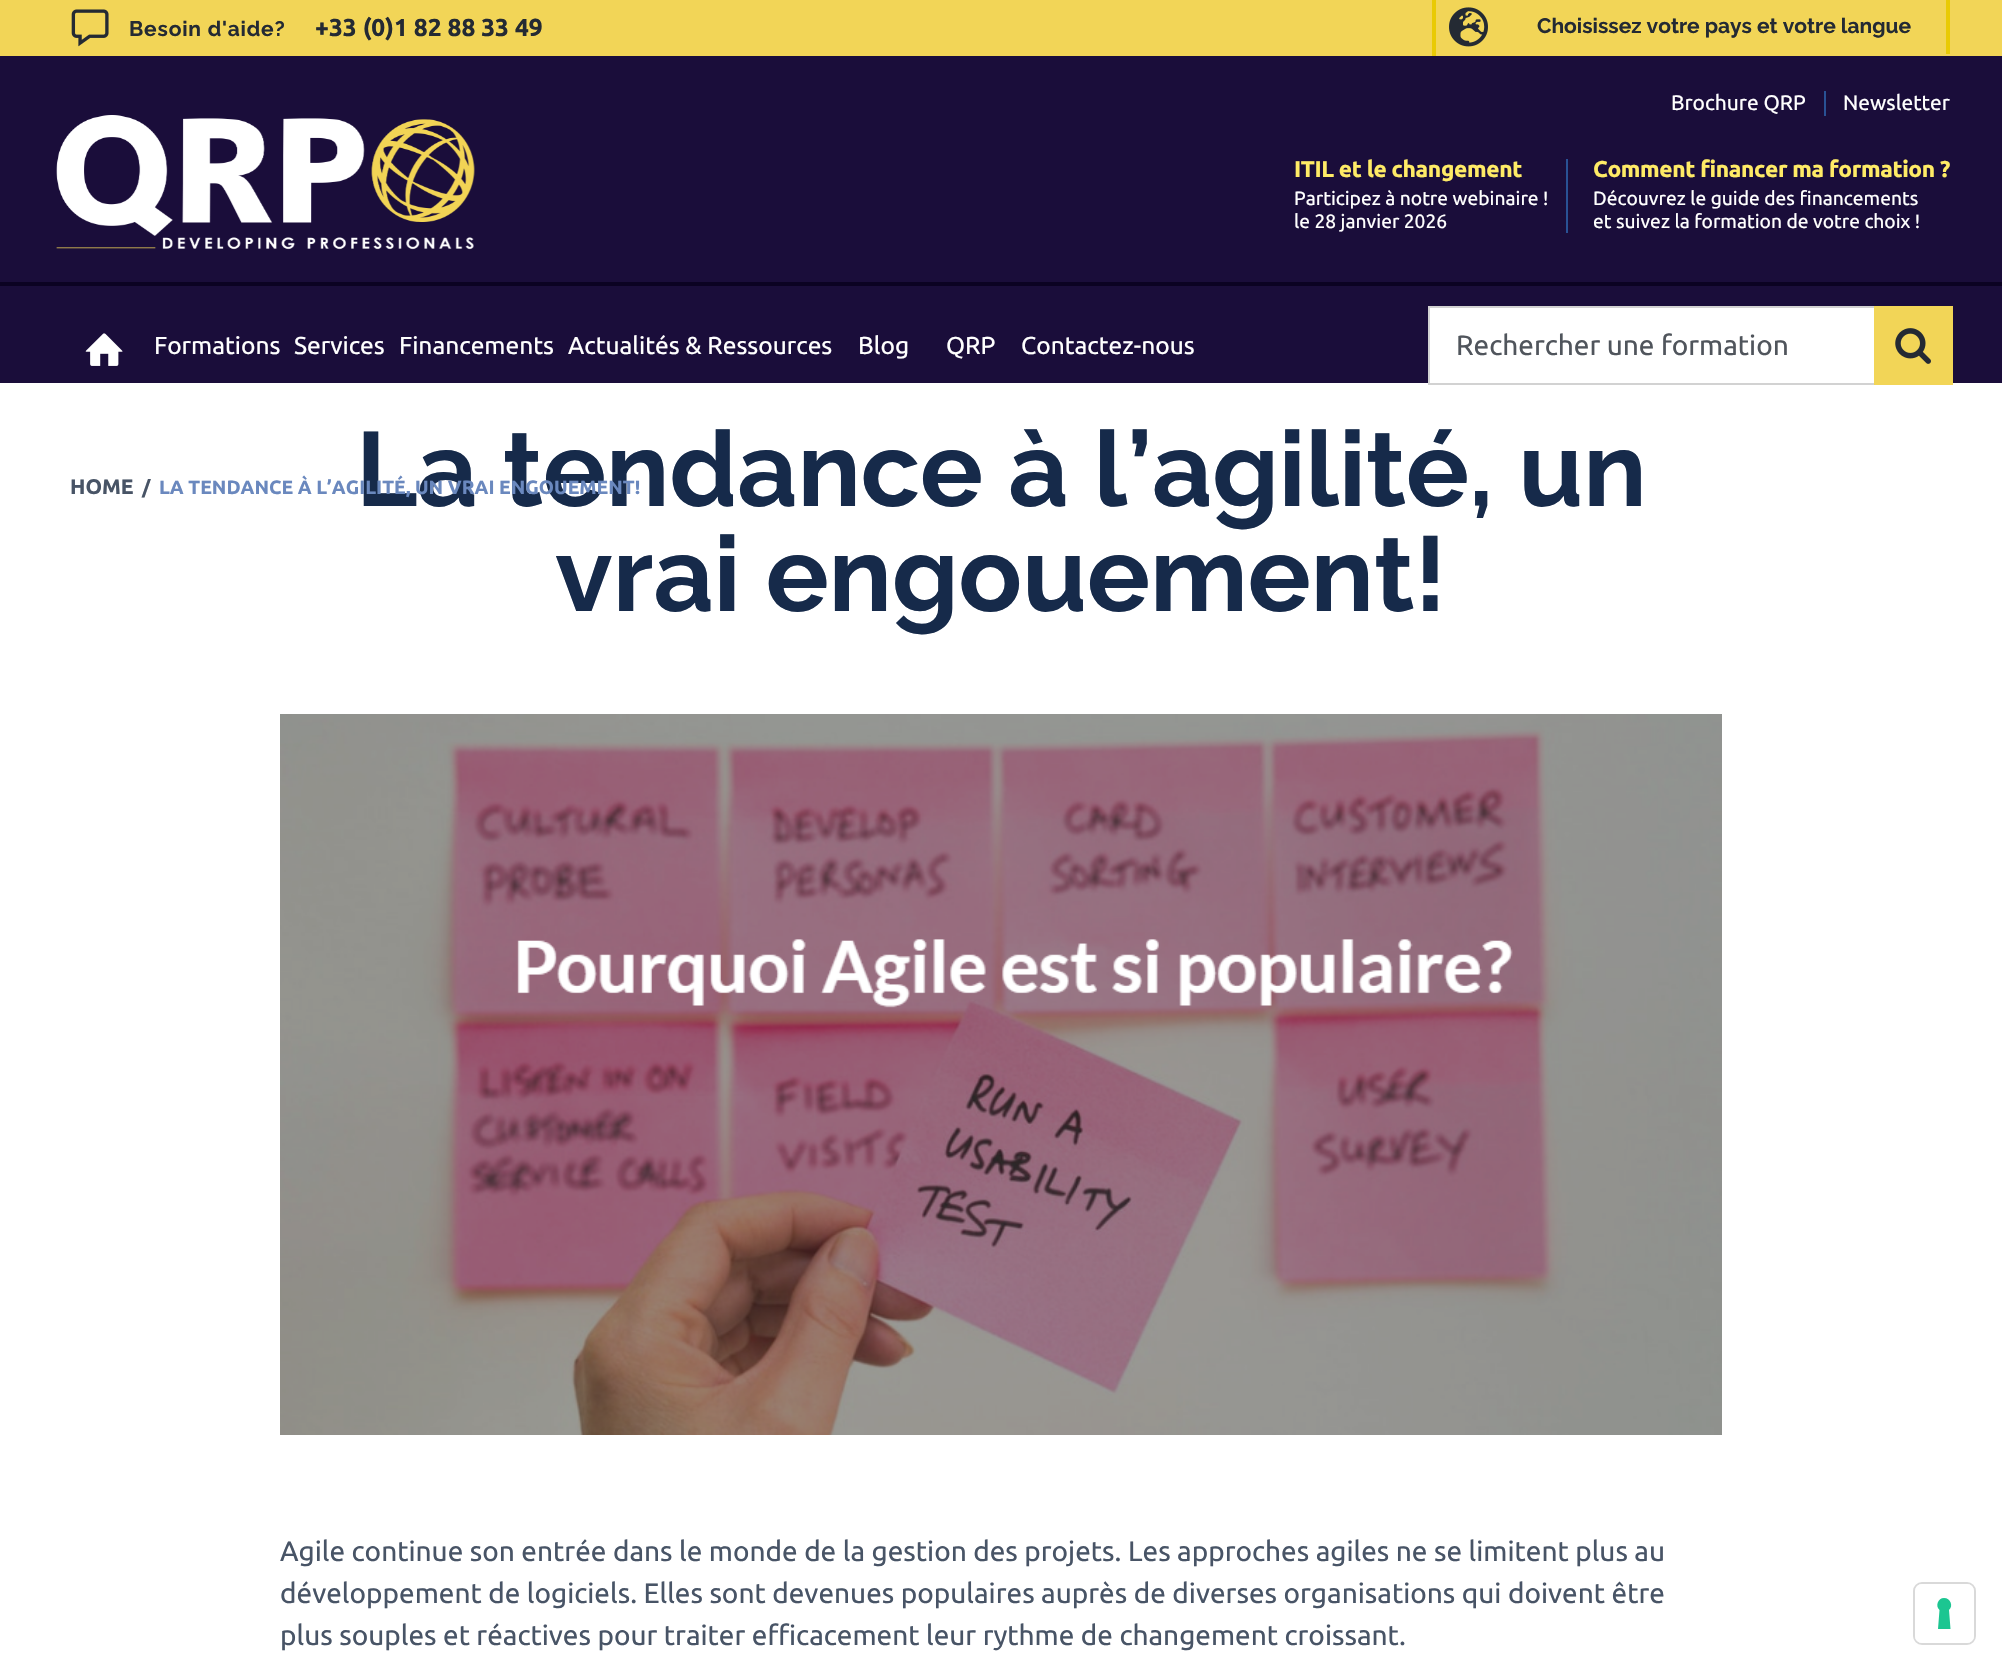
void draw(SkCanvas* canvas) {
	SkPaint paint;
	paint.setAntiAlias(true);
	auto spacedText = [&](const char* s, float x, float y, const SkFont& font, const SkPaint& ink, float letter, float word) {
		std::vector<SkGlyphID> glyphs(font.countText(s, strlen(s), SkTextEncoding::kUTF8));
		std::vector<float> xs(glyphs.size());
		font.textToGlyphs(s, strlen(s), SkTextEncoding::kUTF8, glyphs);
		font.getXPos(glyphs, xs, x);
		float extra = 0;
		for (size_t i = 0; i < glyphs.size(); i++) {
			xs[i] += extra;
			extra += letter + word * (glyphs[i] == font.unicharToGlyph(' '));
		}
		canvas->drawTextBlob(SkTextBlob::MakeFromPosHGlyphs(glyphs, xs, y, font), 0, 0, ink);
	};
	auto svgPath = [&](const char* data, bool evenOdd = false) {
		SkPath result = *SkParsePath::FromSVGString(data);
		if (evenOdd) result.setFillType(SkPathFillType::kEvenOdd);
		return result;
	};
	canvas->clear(0xffffffff);
	paint.setColor(0xfff2d557);
	canvas->drawRect(SkRect::MakeXYWH(0, 0, 2002, 56), paint);
	canvas->drawImageRect(SkImages::DeferredFromEncodedData(SkData::MakeFromFileName("img1.png")), SkRect::MakeXYWH(71, 9, 38, 38), SkSamplingOptions());
	SkFont f1(fontMgr->matchFamilyStyle("Raleway", SkFontStyle::Bold()), 21);
	f1.setSubpixel(true);
	paint.setColor(0xff242a33);
	spacedText("Besoin d'aide?", 129, 36, f1, paint, 0.8, 0);
	SkFont f2(fontMgr->matchFamilyStyle("Ubuntu", SkFontStyle::Bold()), 24.5);
	f2.setSubpixel(true);
	canvas->drawString("+33 (0)1 82 88 33 49", 315, 36, f2, paint);
	paint.setColor(0xffe9ca05);
	canvas->drawRect(SkRect::MakeXYWH(1432, 0, 4, 56), paint);
	canvas->drawImageRect(SkImages::DeferredFromEncodedData(SkData::MakeFromFileName("img2.png")), SkRect::MakeXYWH(1449, 7, 39, 40), SkSamplingOptions());
	canvas->drawRect(SkRect::MakeXYWH(1946, 0, 4, 54), paint);
	paint.setColor(0xff242a33);
	canvas->drawString("Choisissez votre pays et votre langue", 1537, 33, f1, paint);
	paint.setColor(0xff1a0d3a);
	canvas->drawRect(SkRect::MakeXYWH(0, 56, 2002, 327), paint);
	paint.setColor(0xff295194);
	canvas->drawRect(SkRect::MakeXYWH(1824, 91, 2, 25), paint);
	SkFont f3(fontMgr->matchFamilyStyle("Ubuntu", SkFontStyle::Normal()), 21);
	f3.setSubpixel(true);
	paint.setColor(0xffffffff);
	canvas->drawString("Brochure QRP", 1671, 110, f3, paint);
	canvas->drawString("Newsletter", 1843, 110, f3, paint);
	canvas->drawImageRect(SkImages::DeferredFromEncodedData(SkData::MakeFromFileName("img3.png")), SkRect::MakeXYWH(56, 115, 419, 135), SkSamplingOptions());
	paint.setColor(0xff295194);
	canvas->drawRect(SkRect::MakeXYWH(1566, 159, 2, 74), paint);
	SkFont f4(fontMgr->matchFamilyStyle("Ubuntu", SkFontStyle::Bold()), 22.75);
	f4.setSubpixel(true);
	paint.setColor(0xffffeb66);
	spacedText("ITIL et le changement", 1294, 177, f4, paint, -0.35, 0);
	SkFont f5(fontMgr->matchFamilyStyle("Ubuntu", SkFontStyle::Normal()), 19.25);
	f5.setSubpixel(true);
	paint.setColor(0xffffffff);
	canvas->drawString("Participez à notre webinaire !", 1294, 205, f5, paint);
	canvas->drawString("le 28 janvier 2026", 1294, 228, f5, paint);
	paint.setColor(0xffffeb66);
	spacedText("Comment financer ma formation ?", 1593, 177, f4, paint, -0.35, 0);
	paint.setColor(0xffffffff);
	canvas->drawString("Découvrez le guide des financements", 1593, 205, f5, paint);
	canvas->drawString("et suivez la formation de votre choix !", 1593, 228, f5, paint);
	canvas->drawImageRect(SkImages::DeferredFromEncodedData(SkData::MakeFromFileName("img4.png")), SkRect::MakeXYWH(85, 333, 38, 33), SkSamplingOptions());
	SkFont f6(fontMgr->matchFamilyStyle("Ubuntu", SkFontStyle::Normal()), 24.5);
	f6.setSubpixel(true);
	canvas->drawString("Formations", 154, 354, f6, paint);
	canvas->drawString("Services", 294, 354, f6, paint);
	canvas->drawString("Financements", 399, 354, f6, paint);
	canvas->drawString("Actualités & Ressources", 568, 354, f6, paint);
	canvas->drawString("Blog", 858, 354, f6, paint);
	canvas->drawString("QRP", 946, 354, f6, paint);
	canvas->drawString("Contactez-nous", 1021, 354, f6, paint);
	canvas->drawRect(SkRect::MakeXYWH(1430, 308, 444, 75), paint);
	paint.setColor(0xffd2d2d2);
	canvas->drawRect(SkRect::MakeXYWH(1428, 306, 446, 2), paint);
	canvas->drawRect(SkRect::MakeXYWH(1428, 383, 446, 2), paint);
	canvas->drawRect(SkRect::MakeXYWH(1428, 306, 2, 79), paint);
	SkFont f7(fontMgr->matchFamilyStyle("Ubuntu", SkFontStyle::Normal()), 28);
	f7.setSubpixel(true);
	paint.setColor(0xff50555c);
	canvas->drawString("Rechercher une formation", 1456, 355, f7, paint);
	paint.setColor(0xfff2d557);
	canvas->drawRect(SkRect::MakeXYWH(1874, 306, 79, 79), paint);
	canvas->drawImageRect(SkImages::DeferredFromEncodedData(SkData::MakeFromFileName("img5.png")), SkRect::MakeXYWH(1895, 328, 36, 36), SkSamplingOptions());
	paint.setColor(0xff0b0222);
	canvas->drawRect(SkRect::MakeXYWH(0, 282, 2002, 4), paint);
	SkFont f8(fontMgr->matchFamilyStyle("Raleway", SkFontStyle::Bold()), 105);
	f8.setSubpixel(true);
	paint.setColor(0xff162a4a);
	canvas->drawString("La tendance à l’agilité, un", 356, 506, f8, paint);
	canvas->drawString("vrai engouement!", 555, 611, f8, paint);
	canvas->drawImageRect(SkImages::DeferredFromEncodedData(SkData::MakeFromFileName("img6.png")), SkRect::MakeXYWH(280, 714, 1442, 721), SkSamplingOptions());
	paint.setColor(0xff485466);
	canvas->drawString("Agile continue son entrée dans le monde de la gestion des projets. Les approches agiles ne se limitent plus au", 280, 1561, f7, paint);
	canvas->drawString("développement de logiciels. Elles sont devenues populaires auprès de diverses organisations qui doivent être", 280, 1603, f7, paint);
	canvas->drawString("plus souples et réactives pour traiter efficacement leur rythme de changement croissant.", 280, 1645, f7, paint);
	SkFont f9(fontMgr->matchFamilyStyle("Ubuntu", SkFontStyle::Bold()), 21);
	f9.setSubpixel(true);
	canvas->drawString("HOME", 70, 494, f9, paint);
	SkFont f10(fontMgr->matchFamilyStyle("Ubuntu", SkFontStyle::Bold()), 19.25);
	f10.setSubpixel(true);
	canvas->drawString("/", 142, 494, f10, paint);
	paint.setColor(0xff6a88be);
	canvas->drawString("LA TENDANCE À L’AGILITÉ, UN VRAI ENGOUEMENT!", 159, 494, f10, paint);
	paint.setStroke(true);
	paint.setStrokeWidth(2);
	paint.setColor(0xffd9d9d9);
	canvas->drawRoundRect(SkRect::MakeXYWH(1914, 1583, 61, 61), 8, 8, paint);
	paint.setStroke(false);
	paint.setColor(0xffffffff);
	canvas->drawRoundRect(SkRect::MakeXYWH(1915, 1584, 59, 59), 7, 7, paint);
	paint.setColor(0xff1cc691);
	canvas->drawPath(svgPath("M1944 1598C1950.5 1598 1953.5 1606 1949 1610L1950.5 1629H1938L1939.5 1610C1935 1606 1938 1598 1944 1598Z", true), paint);
}
